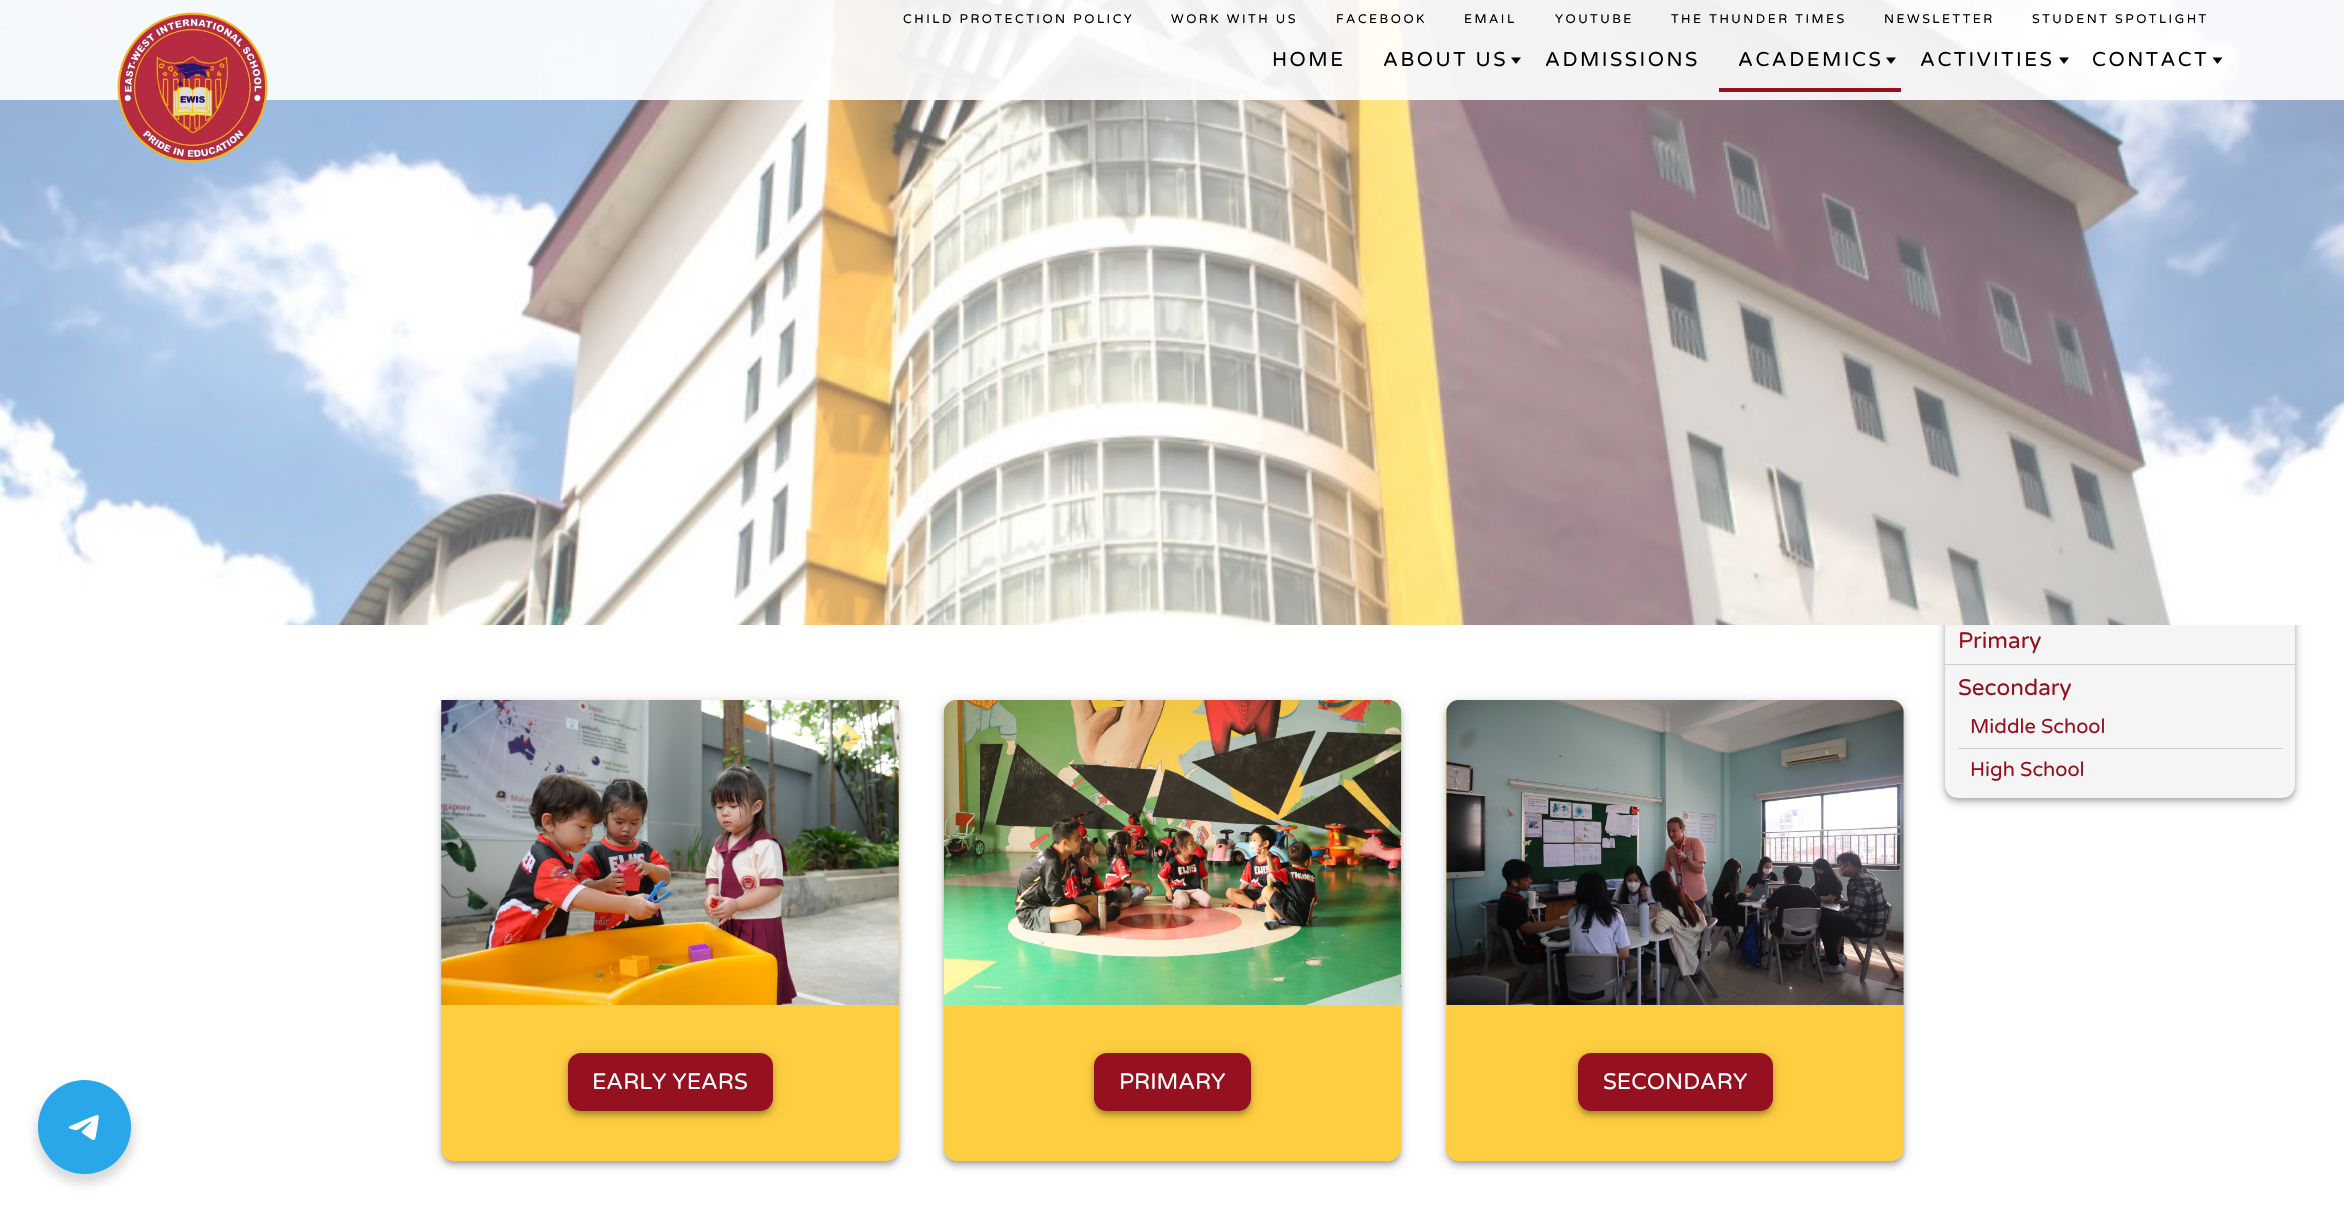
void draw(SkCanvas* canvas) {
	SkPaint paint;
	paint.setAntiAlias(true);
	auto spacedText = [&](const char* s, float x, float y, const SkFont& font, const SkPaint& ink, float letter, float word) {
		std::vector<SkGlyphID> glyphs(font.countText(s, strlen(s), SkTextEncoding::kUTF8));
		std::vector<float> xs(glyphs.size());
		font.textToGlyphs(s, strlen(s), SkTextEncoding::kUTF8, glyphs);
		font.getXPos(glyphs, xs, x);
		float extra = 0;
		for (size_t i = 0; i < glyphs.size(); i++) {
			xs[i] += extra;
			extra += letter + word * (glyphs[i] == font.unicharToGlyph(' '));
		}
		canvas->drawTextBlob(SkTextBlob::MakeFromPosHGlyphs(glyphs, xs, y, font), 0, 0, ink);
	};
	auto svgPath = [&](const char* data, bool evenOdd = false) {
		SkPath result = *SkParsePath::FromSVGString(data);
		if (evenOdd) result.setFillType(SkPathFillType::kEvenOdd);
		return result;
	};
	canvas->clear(0xffffffff);
	paint.setColor(0x33000000);
	paint.setMaskFilter(SkMaskFilter::MakeBlur(kNormal_SkBlurStyle, 2.5));
	canvas->drawRoundRect(SkRect::MakeXYWH(1946, 570, 348, 229), 11, 11, paint);
	paint.setMaskFilter(nullptr);
	paint.setColor(0x1f000000);
	paint.setMaskFilter(SkMaskFilter::MakeBlur(kNormal_SkBlurStyle, 6));
	canvas->drawRoundRect(SkRect::MakeXYWH(1945, 568, 350, 231), 13, 13, paint);
	paint.setMaskFilter(nullptr);
	paint.setColor(0x24000000);
	paint.setMaskFilter(SkMaskFilter::MakeBlur(kNormal_SkBlurStyle, 3));
	canvas->drawRoundRect(SkRect::MakeXYWH(1945, 571, 350, 232), 13, 13, paint);
	paint.setMaskFilter(nullptr);
	paint.setColor(0xfff5f5f5);
	canvas->drawRoundRect(SkRect::MakeXYWH(1945, 566, 350, 232), 13, 13, paint);
	canvas->drawImageRect(SkImages::DeferredFromEncodedData(SkData::MakeFromFileName("img2.png")), SkRect::MakeXYWH(0, 0, 2344, 625), SkSamplingOptions());
	paint.setColor(0xe6ffffff);
	canvas->drawRect(SkRect::MakeXYWH(0, 0, 2344, 100), paint);
	canvas->drawImageRect(SkImages::DeferredFromEncodedData(SkData::MakeFromFileName("img1.png")), SkRect::MakeXYWH(117, 12, 151, 151), SkSamplingOptions());
	SkFont f1(fontMgr->matchFamilyStyle("Varela Round", SkFontStyle::Normal()), 12.5);
	f1.setSubpixel(true);
	paint.setColor(0xff000000);
	spacedText("CHILD PROTECTION POLICY", 903, 23, f1, paint, 2.5, 0);
	spacedText("WORK WITH US", 1171, 23, f1, paint, 2.5, 0);
	spacedText("FACEBOOK", 1336, 23, f1, paint, 2.5, 0);
	spacedText("EMAIL", 1464, 23, f1, paint, 2.5, 0);
	spacedText("YOUTUBE", 1555, 23, f1, paint, 2.5, 0);
	spacedText("THE THUNDER TIMES", 1671, 23, f1, paint, 2.5, 0);
	spacedText("NEWSLETTER", 1884, 23, f1, paint, 2.5, 0);
	spacedText("STUDENT SPOTLIGHT", 2032, 23, f1, paint, 2.5, 0);
	SkFont f2(fontMgr->matchFamilyStyle("Varela Round", SkFontStyle::Normal()), 20);
	f2.setSubpixel(true);
	spacedText("HOME", 1272, 66, f2, paint, 2.5, 0);
	spacedText("ABOUT US", 1383, 66, f2, paint, 2.5, 0);
	canvas->drawPath(svgPath("M1511 57.5H1521L1516 64Z"), paint);
	spacedText("ADMISSIONS", 1545, 66, f2, paint, 2.5, 0);
	spacedText("ACADEMICS", 1738, 66, f2, paint, 2.5, 0);
	paint.setColor(0xff95111f);
	canvas->drawRect(SkRect::MakeXYWH(1719, 88, 182, 4), paint);
	paint.setColor(0xff000000);
	canvas->drawPath(svgPath("M1886 57.5H1896L1891 64Z"), paint);
	spacedText("ACTIVITIES", 1920, 66, f2, paint, 2.5, 0);
	canvas->drawPath(svgPath("M2059 57.5H2069L2064 64Z"), paint);
	spacedText("CONTACT", 2092, 66, f2, paint, 2.5, 0);
	canvas->drawPath(svgPath("M2212.5 57.5H2222.5L2217.5 64Z"), paint);
	paint.setColor(0xffcccccc);
	canvas->drawRect(SkRect::MakeXYWH(1945, 664, 350, 1), paint);
	SkFont f3(fontMgr->matchFamilyStyle("Varela Round", SkFontStyle::Normal()), 22.5);
	f3.setSubpixel(true);
	paint.setColor(0xff95111f);
	canvas->drawString("Primary", 1958, 648, f3, paint);
	canvas->drawString("Secondary", 1958, 695, f3, paint);
	paint.setColor(0xffcccccc);
	canvas->drawRect(SkRect::MakeXYWH(1958, 748, 325, 1), paint);
	paint.setColor(0xff95111f);
	canvas->drawString("Middle School", 1970, 733, f2, paint);
	canvas->drawString("High School", 1970, 776, f2, paint);
	paint.setColor(0x33000000);
	paint.setMaskFilter(SkMaskFilter::MakeBlur(kNormal_SkBlurStyle, 2.5));
	canvas->drawRoundRect(SkRect::MakeXYWH(443, 704, 455, 459), 11, 11, paint);
	paint.setMaskFilter(nullptr);
	paint.setColor(0x1f000000);
	paint.setMaskFilter(SkMaskFilter::MakeBlur(kNormal_SkBlurStyle, 6));
	canvas->drawRoundRect(SkRect::MakeXYWH(441, 701, 458, 462), 13, 13, paint);
	paint.setMaskFilter(nullptr);
	paint.setColor(0x24000000);
	paint.setMaskFilter(SkMaskFilter::MakeBlur(kNormal_SkBlurStyle, 3));
	canvas->drawRoundRect(SkRect::MakeXYWH(441, 705, 458, 461), 13, 13, paint);
	paint.setMaskFilter(nullptr);
	paint.setColor(0xffffce41);
	canvas->drawRoundRect(SkRect::MakeXYWH(441, 700, 458, 461), 13, 13, paint);
	canvas->drawImageRect(SkImages::DeferredFromEncodedData(SkData::MakeFromFileName("img3.png")), SkRect::MakeXYWH(441, 700, 458, 305), SkSamplingOptions());
	paint.setColor(0x33000000);
	paint.setMaskFilter(SkMaskFilter::MakeBlur(kNormal_SkBlurStyle, 2.5));
	canvas->drawRoundRect(SkRect::MakeXYWH(569, 1056, 202, 57), 11, 11, paint);
	paint.setMaskFilter(nullptr);
	paint.setColor(0x1f000000);
	paint.setMaskFilter(SkMaskFilter::MakeBlur(kNormal_SkBlurStyle, 6));
	canvas->drawRoundRect(SkRect::MakeXYWH(568, 1054, 205, 59), 13, 13, paint);
	paint.setMaskFilter(nullptr);
	paint.setColor(0x24000000);
	paint.setMaskFilter(SkMaskFilter::MakeBlur(kNormal_SkBlurStyle, 3));
	canvas->drawRoundRect(SkRect::MakeXYWH(568, 1058, 205, 58), 13, 13, paint);
	paint.setMaskFilter(nullptr);
	paint.setColor(0xff95111f);
	canvas->drawRoundRect(SkRect::MakeXYWH(568, 1053, 205, 58), 13, 13, paint);
	paint.setColor(0xffffffff);
	canvas->drawString("EARLY YEARS", 592, 1089, f3, paint);
	paint.setColor(0x33000000);
	paint.setMaskFilter(SkMaskFilter::MakeBlur(kNormal_SkBlurStyle, 2.5));
	canvas->drawRoundRect(SkRect::MakeXYWH(945, 704, 455, 459), 11, 11, paint);
	paint.setMaskFilter(nullptr);
	paint.setColor(0x1f000000);
	paint.setMaskFilter(SkMaskFilter::MakeBlur(kNormal_SkBlurStyle, 6));
	canvas->drawRoundRect(SkRect::MakeXYWH(944, 701, 457, 462), 13, 13, paint);
	paint.setMaskFilter(nullptr);
	paint.setColor(0x24000000);
	paint.setMaskFilter(SkMaskFilter::MakeBlur(kNormal_SkBlurStyle, 3));
	canvas->drawRoundRect(SkRect::MakeXYWH(944, 705, 457, 461), 13, 13, paint);
	paint.setMaskFilter(nullptr);
	paint.setColor(0xffffce41);
	canvas->drawRoundRect(SkRect::MakeXYWH(944, 700, 457, 461), 13, 13, paint);
	canvas->drawImageRect(SkImages::DeferredFromEncodedData(SkData::MakeFromFileName("img4.png")), SkRect::MakeXYWH(943, 700, 459, 305), SkSamplingOptions());
	paint.setColor(0x33000000);
	paint.setMaskFilter(SkMaskFilter::MakeBlur(kNormal_SkBlurStyle, 2.5));
	canvas->drawRoundRect(SkRect::MakeXYWH(1095, 1056, 155, 57), 11, 11, paint);
	paint.setMaskFilter(nullptr);
	paint.setColor(0x1f000000);
	paint.setMaskFilter(SkMaskFilter::MakeBlur(kNormal_SkBlurStyle, 6));
	canvas->drawRoundRect(SkRect::MakeXYWH(1094, 1054, 157, 59), 13, 13, paint);
	paint.setMaskFilter(nullptr);
	paint.setColor(0x24000000);
	paint.setMaskFilter(SkMaskFilter::MakeBlur(kNormal_SkBlurStyle, 3));
	canvas->drawRoundRect(SkRect::MakeXYWH(1094, 1058, 157, 58), 13, 13, paint);
	paint.setMaskFilter(nullptr);
	paint.setColor(0xff95111f);
	canvas->drawRoundRect(SkRect::MakeXYWH(1094, 1053, 157, 58), 13, 13, paint);
	paint.setColor(0xffffffff);
	canvas->drawString("PRIMARY", 1119, 1089, f3, paint);
	paint.setColor(0x33000000);
	paint.setMaskFilter(SkMaskFilter::MakeBlur(kNormal_SkBlurStyle, 2.5));
	canvas->drawRoundRect(SkRect::MakeXYWH(1448, 704, 455, 459), 11, 11, paint);
	paint.setMaskFilter(nullptr);
	paint.setColor(0x1f000000);
	paint.setMaskFilter(SkMaskFilter::MakeBlur(kNormal_SkBlurStyle, 6));
	canvas->drawRoundRect(SkRect::MakeXYWH(1446, 701, 458, 462), 13, 13, paint);
	paint.setMaskFilter(nullptr);
	paint.setColor(0x24000000);
	paint.setMaskFilter(SkMaskFilter::MakeBlur(kNormal_SkBlurStyle, 3));
	canvas->drawRoundRect(SkRect::MakeXYWH(1446, 705, 458, 461), 13, 13, paint);
	paint.setMaskFilter(nullptr);
	paint.setColor(0xffffce41);
	canvas->drawRoundRect(SkRect::MakeXYWH(1446, 700, 458, 461), 13, 13, paint);
	canvas->drawImageRect(SkImages::DeferredFromEncodedData(SkData::MakeFromFileName("img5.png")), SkRect::MakeXYWH(1446, 700, 458, 305), SkSamplingOptions());
	paint.setColor(0x33000000);
	paint.setMaskFilter(SkMaskFilter::MakeBlur(kNormal_SkBlurStyle, 2.5));
	canvas->drawRoundRect(SkRect::MakeXYWH(1579, 1056, 192, 57), 11, 11, paint);
	paint.setMaskFilter(nullptr);
	paint.setColor(0x1f000000);
	paint.setMaskFilter(SkMaskFilter::MakeBlur(kNormal_SkBlurStyle, 6));
	canvas->drawRoundRect(SkRect::MakeXYWH(1578, 1054, 195, 59), 13, 13, paint);
	paint.setMaskFilter(nullptr);
	paint.setColor(0x24000000);
	paint.setMaskFilter(SkMaskFilter::MakeBlur(kNormal_SkBlurStyle, 3));
	canvas->drawRoundRect(SkRect::MakeXYWH(1578, 1058, 195, 58), 13, 13, paint);
	paint.setMaskFilter(nullptr);
	paint.setColor(0xff95111f);
	canvas->drawRoundRect(SkRect::MakeXYWH(1578, 1053, 195, 58), 13, 13, paint);
	paint.setColor(0xffffffff);
	canvas->drawString("SECONDARY", 1603, 1089, f3, paint);
	paint.setColor(0x24000000);
	paint.setMaskFilter(SkMaskFilter::MakeBlur(kNormal_SkBlurStyle, 5));
	canvas->drawRoundRect(SkRect::MakeXYWH(35, 1085, 99, 99), 49.5, 49.5, paint);
	paint.setMaskFilter(nullptr);
	paint.setColor(0xff2aa7e8);
	canvas->drawRoundRect(SkRect::MakeXYWH(38, 1080, 93, 94), 46.5, 46.5, paint);
	canvas->drawImageRect(SkImages::DeferredFromEncodedData(SkData::MakeFromFileName("img6.png")), SkRect::MakeXYWH(68, 1115, 31, 25), SkSamplingOptions());
}
